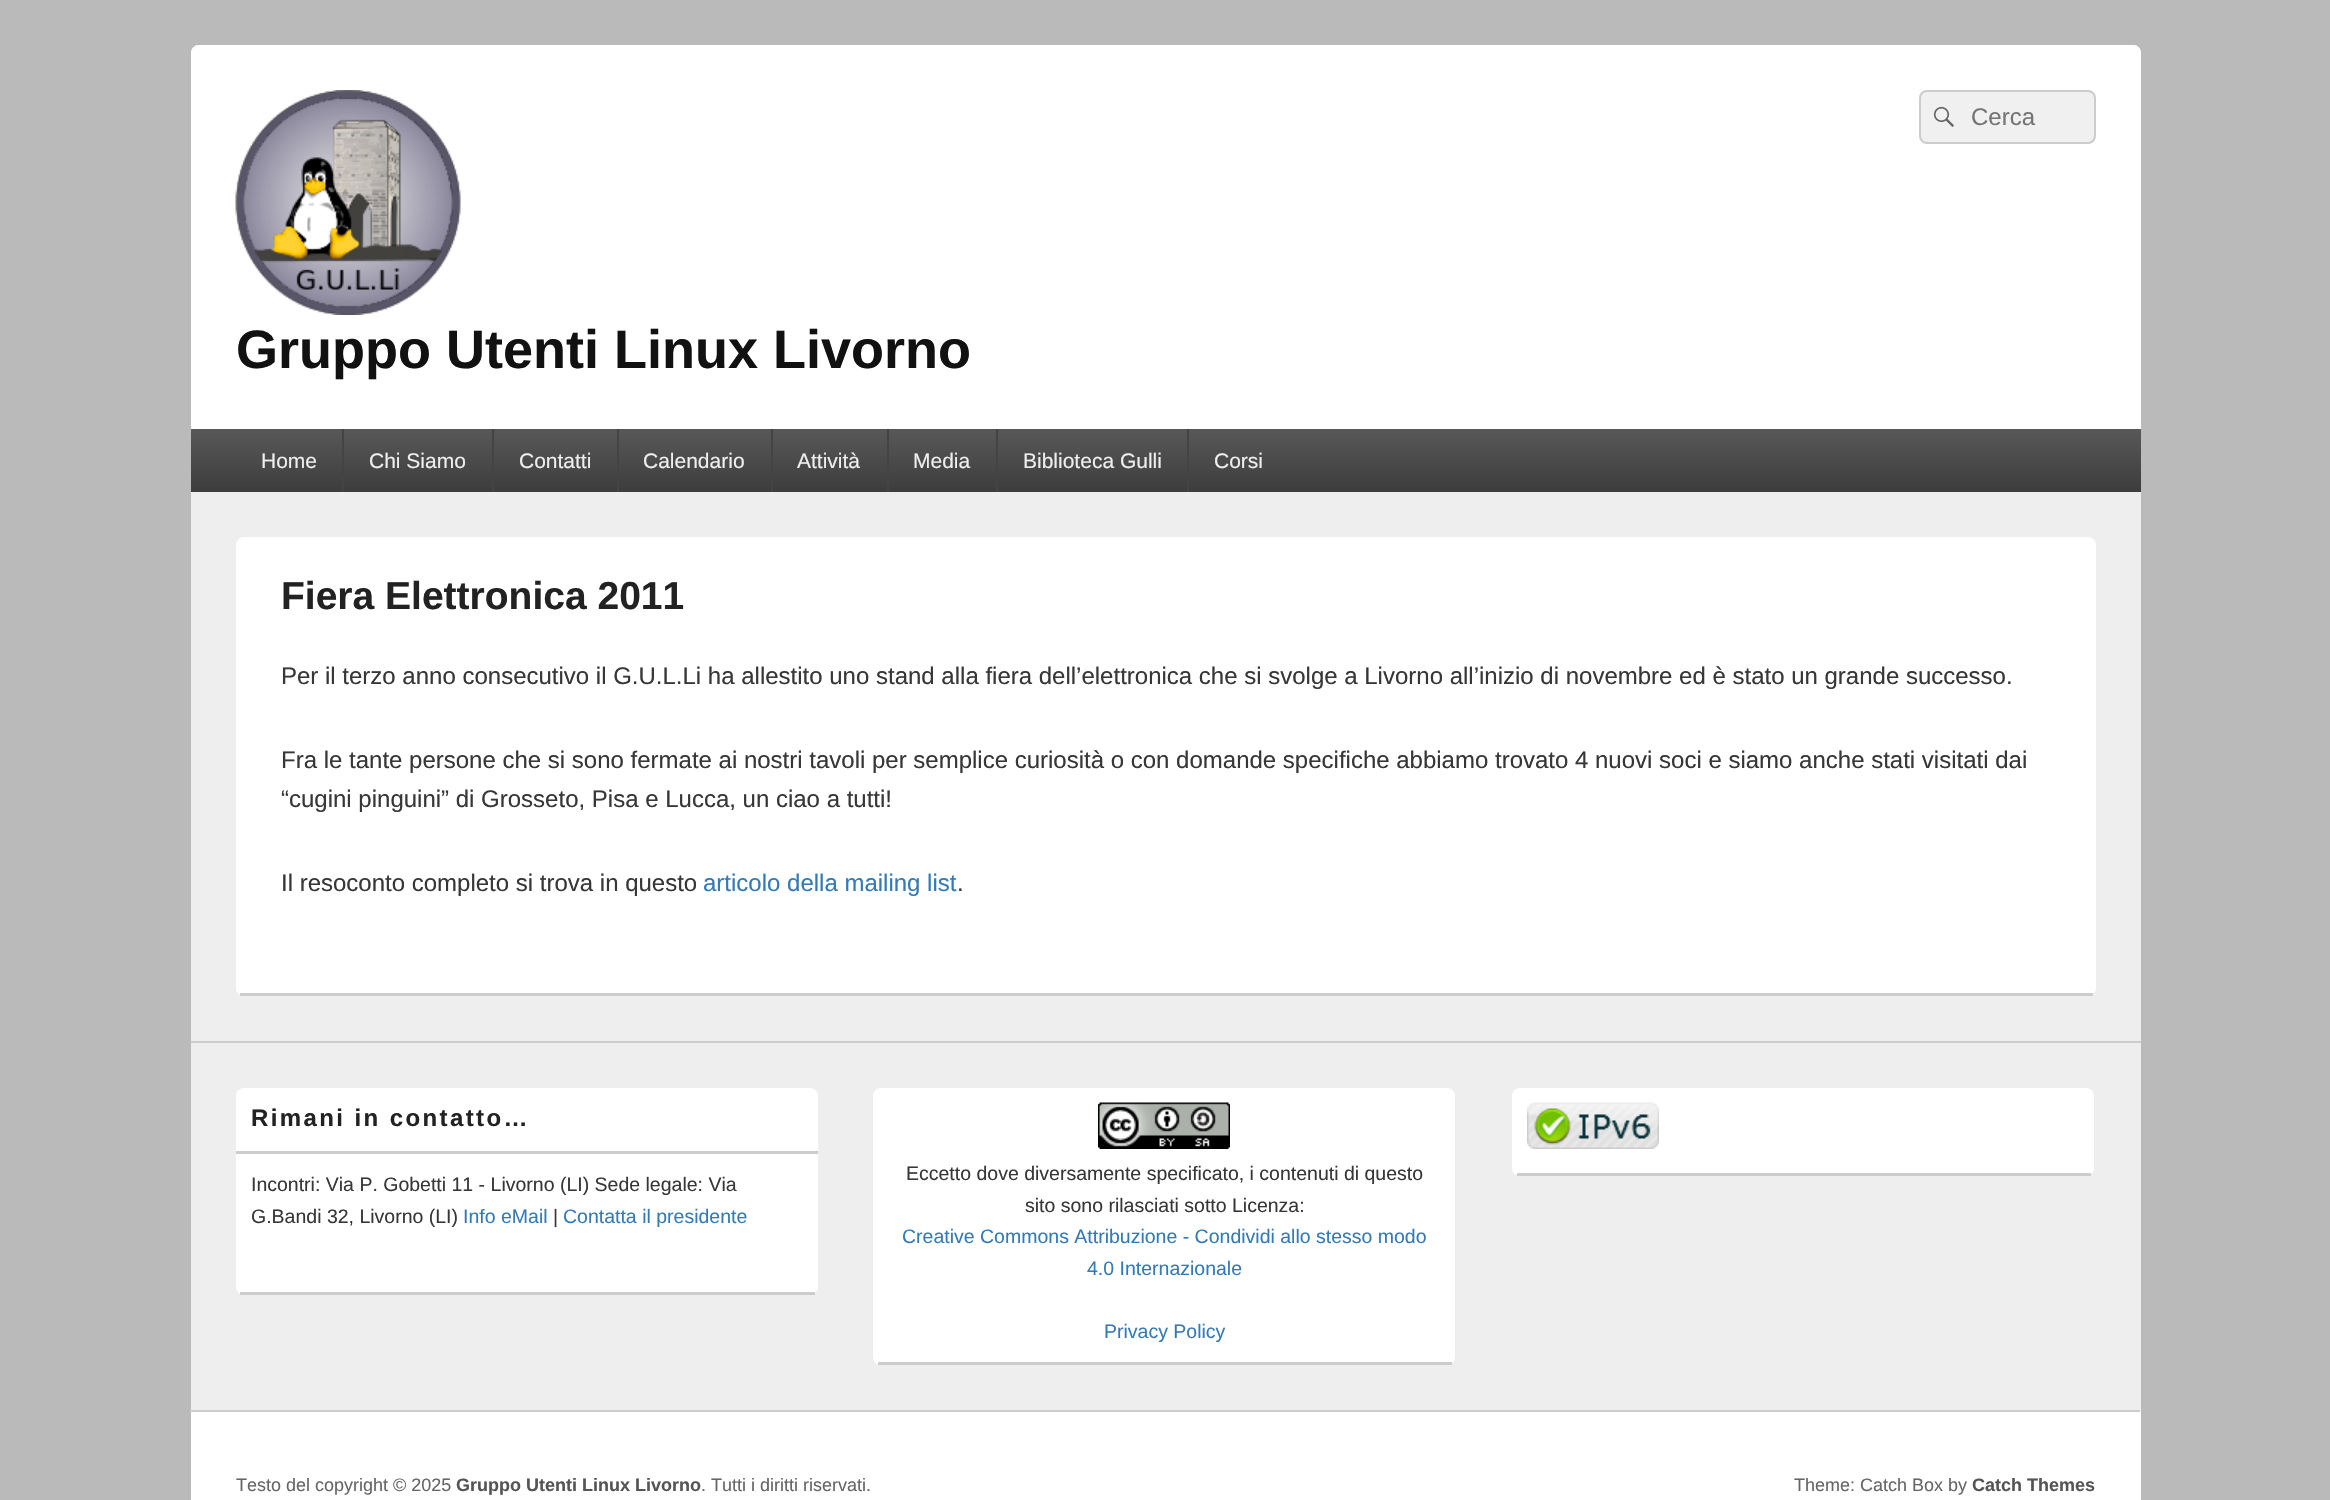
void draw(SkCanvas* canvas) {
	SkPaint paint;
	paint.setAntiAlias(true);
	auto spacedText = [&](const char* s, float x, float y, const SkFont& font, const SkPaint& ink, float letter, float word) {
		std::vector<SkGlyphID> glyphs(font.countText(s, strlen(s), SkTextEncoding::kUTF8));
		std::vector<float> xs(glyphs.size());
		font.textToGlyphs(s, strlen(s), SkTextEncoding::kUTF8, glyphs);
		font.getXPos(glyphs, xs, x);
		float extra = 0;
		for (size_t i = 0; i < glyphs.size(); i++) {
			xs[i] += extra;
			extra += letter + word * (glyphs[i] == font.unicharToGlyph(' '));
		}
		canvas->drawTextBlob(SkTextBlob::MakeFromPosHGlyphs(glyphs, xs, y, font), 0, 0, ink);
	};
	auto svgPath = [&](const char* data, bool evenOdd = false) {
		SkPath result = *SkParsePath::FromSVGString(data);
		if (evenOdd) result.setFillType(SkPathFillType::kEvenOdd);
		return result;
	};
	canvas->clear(0xffbababa);
	paint.setColor(0xffeeeeee);
	canvas->drawRoundRect(SkRect::MakeXYWH(191, 45, 1950, 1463), 8, 8, paint);
	paint.setColor(0xffffffff);
	canvas->drawPath(svgPath("M199 45H2133C2137.5 45 2141 48.5 2141 53V492H191V53C191 48.5 194.5 45 199 45Z"), paint);
	paint.setColor(0xfff0f0f0);
	canvas->drawRoundRect(SkRect::MakeXYWH(1920, 91, 175, 52), 7, 7, paint);
	paint.setStroke(true);
	paint.setStrokeWidth(2);
	paint.setColor(0xffcccccc);
	canvas->drawRoundRect(SkRect::MakeXYWH(1920, 91, 175, 52), 7, 7, paint);
	canvas->drawImageRect(SkImages::DeferredFromEncodedData(SkData::MakeFromFileName("img1.png")), SkRect::MakeXYWH(1933, 106, 21, 21), SkSamplingOptions());
	SkFont f1(fontMgr->matchFamilyStyle("Liberation Sans", SkFontStyle::Normal()), 24);
	f1.setSubpixel(true);
	paint.setStroke(false);
	paint.setColor(0xff757575);
	canvas->drawString("Cerca", 1971, 125, f1, paint);
	canvas->drawImageRect(SkImages::DeferredFromEncodedData(SkData::MakeFromFileName("img2.png")), SkRect::MakeXYWH(235, 90, 226, 225), SkSamplingOptions());
	SkFont f2(fontMgr->matchFamilyStyle("Liberation Sans", SkFontStyle::Bold()), 54);
	f2.setSubpixel(true);
	paint.setColor(0xff111111);
	canvas->drawString("Gruppo Utenti Linux Livorno", 236, 368, f2, paint);
	{
		const SkColor colors[] = {0xff585858, 0xff3d3d3d};
		const float stops[] = {0, 1};
		const SkPoint ends[] = {{1166, 429}, {1166, 492}};
		paint.setShader(SkGradientShader::MakeLinear(ends, colors, stops, 2, SkTileMode::kClamp));
		paint.setAlpha(255);
	}
	canvas->drawRect(SkRect::MakeXYWH(191, 429, 1950, 63), paint);
	SkFont f3(fontMgr->matchFamilyStyle("Liberation Sans", SkFontStyle::Normal()), 21);
	f3.setSubpixel(true);
	paint.setShader(nullptr);
	paint.setColor(0xffeeeeee);
	canvas->drawString("Home", 261, 468, f3, paint);
	paint.setColor(0xff444444);
	canvas->drawRect(SkRect::MakeXYWH(342, 429, 2, 63), paint);
	paint.setColor(0xffeeeeee);
	canvas->drawString("Chi Siamo", 369, 468, f3, paint);
	paint.setColor(0xff444444);
	canvas->drawRect(SkRect::MakeXYWH(492, 429, 2, 63), paint);
	paint.setColor(0xffeeeeee);
	canvas->drawString("Contatti", 519, 468, f3, paint);
	paint.setColor(0xff444444);
	canvas->drawRect(SkRect::MakeXYWH(617, 429, 2, 63), paint);
	paint.setColor(0xffeeeeee);
	canvas->drawString("Calendario", 643, 468, f3, paint);
	paint.setColor(0xff444444);
	canvas->drawRect(SkRect::MakeXYWH(771, 429, 2, 63), paint);
	paint.setColor(0xffeeeeee);
	canvas->drawString("Attività", 797, 468, f3, paint);
	paint.setColor(0xff444444);
	canvas->drawRect(SkRect::MakeXYWH(887, 429, 2, 63), paint);
	paint.setColor(0xffeeeeee);
	canvas->drawString("Media", 913, 468, f3, paint);
	paint.setColor(0xff444444);
	canvas->drawRect(SkRect::MakeXYWH(996, 429, 2, 63), paint);
	paint.setColor(0xffeeeeee);
	canvas->drawString("Biblioteca Gulli", 1023, 468, f3, paint);
	paint.setColor(0xff444444);
	canvas->drawRect(SkRect::MakeXYWH(1187, 429, 2, 63), paint);
	paint.setColor(0xffeeeeee);
	canvas->drawString("Corsi", 1214, 468, f3, paint);
	paint.setColor(0xffffffff);
	canvas->drawRoundRect(SkRect::MakeXYWH(236, 537, 1860, 459), 8, 8, paint);
	paint.setColor(0xffcccccc);
	canvas->drawRect(SkRect::MakeXYWH(240, 993, 1853, 3), paint);
	SkFont f4(fontMgr->matchFamilyStyle("Liberation Sans", SkFontStyle::Bold()), 39);
	f4.setSubpixel(true);
	paint.setColor(0xff222222);
	canvas->drawString("Fiera Elettronica 2011", 281, 609, f4, paint);
	paint.setColor(0xff373737);
	canvas->drawString("Per il terzo anno consecutivo il G.U.L.Li ha allestito uno stand alla fiera dell’elettronica che si svolge a Livorno all’inizio di novembre ed è stato un grande successo.", 281, 684, f1, paint);
	canvas->drawString("Fra le tante persone che si sono fermate ai nostri tavoli per semplice curiosità o con domande specifiche abbiamo trovato 4 nuovi soci e siamo anche stati visitati dai", 281, 768, f1, paint);
	canvas->drawString("“cugini pinguini” di Grosseto, Pisa e Lucca, un ciao a tutti!", 281, 807, f1, paint);
	canvas->drawString("Il resoconto completo si trova in questo", 281, 891, f1, paint);
	paint.setColor(0xff337ab7);
	canvas->drawString("articolo della mailing list", 703, 891, f1, paint);
	paint.setColor(0xff373737);
	canvas->drawString(".", 957, 891, f1, paint);
	paint.setColor(0xffcccccc);
	canvas->drawRect(SkRect::MakeXYWH(191, 1041, 1950, 2), paint);
	paint.setColor(0xffffffff);
	canvas->drawRoundRect(SkRect::MakeXYWH(236, 1088, 582, 207), 8, 8, paint);
	paint.setColor(0xffcccccc);
	canvas->drawRect(SkRect::MakeXYWH(240, 1292, 575, 3), paint);
	canvas->drawRect(SkRect::MakeXYWH(236, 1151, 582, 3), paint);
	SkFont f5(fontMgr->matchFamilyStyle("Liberation Sans", SkFontStyle::Bold()), 24);
	f5.setSubpixel(true);
	paint.setColor(0xff222222);
	spacedText("Rimani in contatto…", 251, 1126, f5, paint, 2.4, 0);
	SkFont f6(fontMgr->matchFamilyStyle("Liberation Sans", SkFontStyle::Normal()), 19.5);
	f6.setSubpixel(true);
	paint.setColor(0xff373737);
	canvas->drawString("Incontri: Via P. Gobetti 11 - Livorno (LI) Sede legale: Via", 251, 1191, f6, paint);
	canvas->drawString("G.Bandi 32, Livorno (LI)", 251, 1223, f6, paint);
	paint.setColor(0xff337ab7);
	canvas->drawString("Info eMail", 463, 1223, f6, paint);
	paint.setColor(0xff373737);
	canvas->drawString("|", 553, 1223, f6, paint);
	paint.setColor(0xff337ab7);
	canvas->drawString("Contatta il presidente", 563, 1223, f6, paint);
	paint.setColor(0xffffffff);
	canvas->drawRoundRect(SkRect::MakeXYWH(873, 1088, 582, 277), 8, 8, paint);
	paint.setColor(0xffcccccc);
	canvas->drawRect(SkRect::MakeXYWH(878, 1362, 574, 3), paint);
	canvas->drawImageRect(SkImages::DeferredFromEncodedData(SkData::MakeFromFileName("img3.png")), SkRect::MakeXYWH(1098, 1102, 132, 47), SkSamplingOptions());
	paint.setColor(0xff373737);
	canvas->drawString("Eccetto dove diversamente specificato, i contenuti di questo", 906, 1180, f6, paint);
	canvas->drawString("sito sono rilasciati sotto Licenza:", 1025, 1212, f6, paint);
	paint.setColor(0xff337ab7);
	canvas->drawString("Creative Commons Attribuzione - Condividi allo stesso modo", 902, 1243, f6, paint);
	canvas->drawString("4.0 Internazionale", 1087, 1275, f6, paint);
	canvas->drawString("Privacy Policy", 1104, 1338, f6, paint);
	paint.setColor(0xffffffff);
	canvas->drawRoundRect(SkRect::MakeXYWH(1512, 1088, 582, 88), 8, 8, paint);
	paint.setColor(0xffcccccc);
	canvas->drawRect(SkRect::MakeXYWH(1517, 1173, 574, 3), paint);
	canvas->drawImageRect(SkImages::DeferredFromEncodedData(SkData::MakeFromFileName("img4.png")), SkRect::MakeXYWH(1527, 1102, 132, 47), SkSamplingOptions());
	paint.setColor(0xffffffff);
	canvas->drawRect(SkRect::MakeXYWH(191, 1410, 1950, 90), paint);
	paint.setColor(0xffcccccc);
	canvas->drawRect(SkRect::MakeXYWH(190, 1410, 1950, 2), paint);
	SkFont f7(fontMgr->matchFamilyStyle("Liberation Sans", SkFontStyle::Normal()), 18);
	f7.setSubpixel(true);
	paint.setColor(0xff666666);
	canvas->drawString("Testo del copyright © 2025", 236, 1491, f7, paint);
	SkFont f8(fontMgr->matchFamilyStyle("Liberation Sans", SkFontStyle::Bold()), 18);
	f8.setSubpixel(true);
	paint.setColor(0xff555555);
	canvas->drawString("Gruppo Utenti Linux Livorno", 456, 1491, f8, paint);
	paint.setColor(0xff666666);
	canvas->drawString(". Tutti i diritti riservati.", 701, 1491, f7, paint);
	canvas->drawString("Theme: Catch Box by", 1794, 1491, f7, paint);
	paint.setColor(0xff555555);
	canvas->drawString("Catch Themes", 1972, 1491, f8, paint);
}
